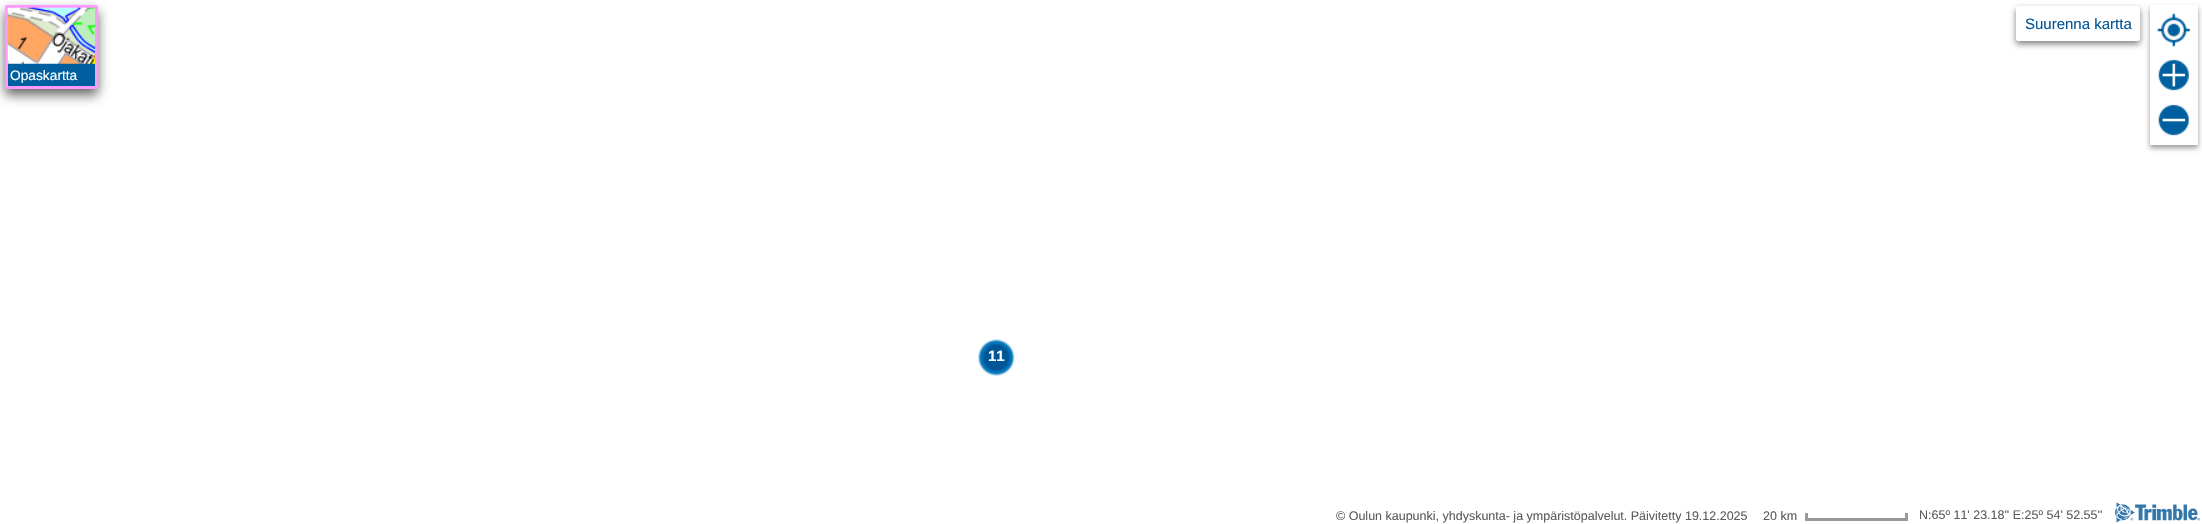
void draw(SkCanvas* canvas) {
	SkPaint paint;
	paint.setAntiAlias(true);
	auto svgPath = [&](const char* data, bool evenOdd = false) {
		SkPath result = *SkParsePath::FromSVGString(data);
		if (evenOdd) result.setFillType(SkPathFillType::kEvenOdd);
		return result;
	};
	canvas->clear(0xffffffff);
	canvas->save();
	canvas->clipPath(svgPath("M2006 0H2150V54H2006ZM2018.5 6H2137.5C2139 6 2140 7 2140 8.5V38.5C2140 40 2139 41 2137.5 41H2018.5C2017 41 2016 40 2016 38.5V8.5C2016 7 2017 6 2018.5 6Z", true), true);
	paint.setColor(0x80000000);
	paint.setMaskFilter(SkMaskFilter::MakeBlur(kNormal_SkBlurStyle, 3));
	canvas->drawRoundRect(SkRect::MakeXYWH(2016, 9, 124, 35), 2.5, 2.5, paint);
	paint.setMaskFilter(nullptr);
	canvas->restore();
	paint.setStroke(true);
	paint.setStrokeWidth(1);
	paint.setColor(0xffffffff);
	canvas->drawRoundRect(SkRect::MakeXYWH(2016.5, 6.5, 123, 34), 2, 2, paint);
	SkFont f1(fontMgr->matchFamilyStyle("Liberation Sans", SkFontStyle::Normal()), 15);
	f1.setSubpixel(true);
	paint.setStroke(false);
	paint.setColor(0xff005596);
	canvas->drawString("Suurenna kartta", 2025, 29, f1, paint);
	paint.setColor(0x66000000);
	paint.setMaskFilter(SkMaskFilter::MakeBlur(kNormal_SkBlurStyle, 2.5));
	canvas->drawRect(SkRect::MakeXYWH(2150, 8, 48, 140), paint);
	paint.setMaskFilter(nullptr);
	paint.setColor(0xffffffff);
	canvas->drawRect(SkRect::MakeXYWH(2150, 5, 48, 140), paint);
	canvas->drawImageRect(SkImages::DeferredFromEncodedData(SkData::MakeFromFileName("img1.png")), SkRect::MakeXYWH(2157, 13, 34, 34), SkSamplingOptions());
	canvas->drawImageRect(SkImages::DeferredFromEncodedData(SkData::MakeFromFileName("img2.png")), SkRect::MakeXYWH(2158, 59, 31, 32), SkSamplingOptions());
	canvas->drawImageRect(SkImages::DeferredFromEncodedData(SkData::MakeFromFileName("img3.png")), SkRect::MakeXYWH(2158, 104, 31, 32), SkSamplingOptions());
	paint.setColor(0x99000000);
	paint.setMaskFilter(SkMaskFilter::MakeBlur(kNormal_SkBlurStyle, 6));
	canvas->drawRoundRect(SkRect::MakeXYWH(5, 11, 93, 84), 2.5, 2.5, paint);
	paint.setMaskFilter(nullptr);
	paint.setStroke(true);
	paint.setStrokeWidth(3);
	paint.setColor(0xffff99ff);
	canvas->drawRoundRect(SkRect::MakeXYWH(6.5, 6.5, 90, 81), 1, 1, paint);
	paint.setStroke(false);
	paint.setColor(0xff005f9e);
	canvas->drawRect(SkRect::MakeXYWH(8, 63, 87, 23), paint);
	canvas->drawImageRect(SkImages::DeferredFromEncodedData(SkData::MakeFromFileName("img4.png")), SkRect::MakeXYWH(7, 7, 88, 57), SkSamplingOptions());
	SkFont f2(fontMgr->matchFamilyStyle("Liberation Sans", SkFontStyle::Normal()), 13.75);
	f2.setSubpixel(true);
	paint.setColor(0xffffffff);
	canvas->drawString("Opaskartta", 10, 80, f2, paint);
	canvas->drawImageRect(SkImages::DeferredFromEncodedData(SkData::MakeFromFileName("img5.png")), SkRect::MakeXYWH(978, 339, 37, 37), SkSamplingOptions());
	SkFont f3(fontMgr->matchFamilyStyle("Liberation Sans", SkFontStyle::Bold()), 15);
	f3.setSubpixel(true);
	canvas->drawString("11", 988, 361, f3, paint);
	SkFont f4(fontMgr->matchFamilyStyle("Liberation Sans", SkFontStyle::Normal()), 12.5);
	f4.setSubpixel(true);
	paint.setColor(0xff5c5c5c);
	canvas->drawString("© Oulun kaupunki, yhdyskunta- ja ympäristöpalvelut. Päivitetty 19.12.2025", 1336, 520, f4, paint);
	canvas->drawString("20 km", 1763, 520, f4, paint);
	paint.setColor(0xff999999);
	canvas->drawRect(SkRect::MakeXYWH(1905, 513, 3, 7), paint);
	canvas->drawRect(SkRect::MakeXYWH(1805, 518, 103, 3), paint);
	canvas->drawRect(SkRect::MakeXYWH(1805, 513, 3, 7), paint);
	paint.setColor(0xff5c5c5c);
	canvas->drawString("N:65º 11' 23.18'' E:25º 54' 52.55''", 1919, 519, f4, paint);
	canvas->drawImageRect(SkImages::DeferredFromEncodedData(SkData::MakeFromFileName("img6.png")), SkRect::MakeXYWH(2115, 502, 85, 21), SkSamplingOptions());
}
